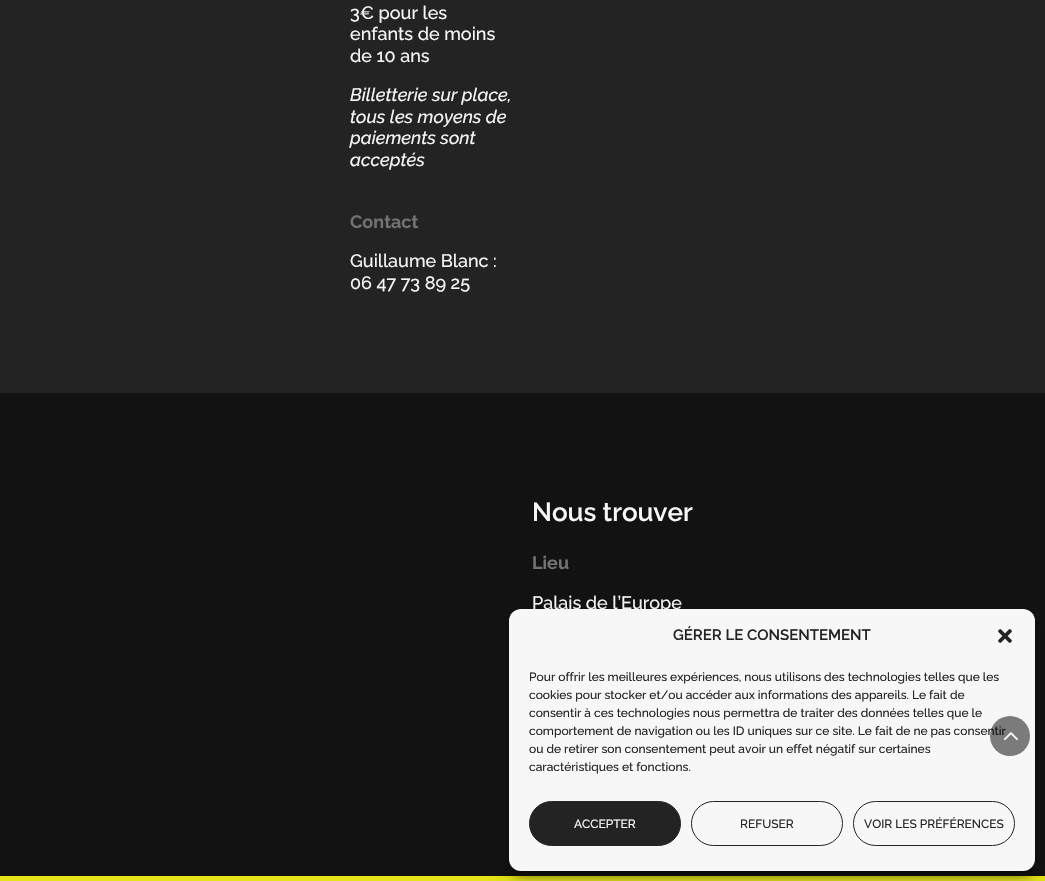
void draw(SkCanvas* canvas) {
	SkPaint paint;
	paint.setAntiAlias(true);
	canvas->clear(0xff232323);
	SkFont f1(fontMgr->matchFamilyStyle("Raleway", SkFontStyle(500, SkFontStyle::kNormal_Width, SkFontStyle::kUpright_Slant)), 18);
	f1.setSubpixel(true);
	paint.setColor(0xfff7f7f7);
	canvas->drawString("3€ pour les", 350, 19, f1, paint);
	canvas->drawString("enfants de moins", 350, 40, f1, paint);
	canvas->drawString("de 10 ans", 350, 62, f1, paint);
	SkFont f2(fontMgr->matchFamilyStyle("Raleway", SkFontStyle(500, SkFontStyle::kNormal_Width, SkFontStyle::kItalic_Slant)), 18);
	f2.setSubpixel(true);
	canvas->drawString("Billetterie sur place,", 350, 101, f2, paint);
	canvas->drawString("tous les moyens de", 350, 123, f2, paint);
	canvas->drawString("paiements sont", 350, 144, f2, paint);
	canvas->drawString("acceptés", 350, 166, f2, paint);
	SkFont f3(fontMgr->matchFamilyStyle("Raleway", SkFontStyle::Bold()), 18);
	f3.setSubpixel(true);
	paint.setColor(0xff727272);
	canvas->drawString("Contact", 350, 228, f3, paint);
	paint.setColor(0xfff7f7f7);
	canvas->drawString("Guillaume Blanc :", 350, 267, f1, paint);
	canvas->drawString("06 47 73 89 25", 350, 289, f1, paint);
	paint.setColor(0xff121212);
	canvas->drawRect(SkRect::MakeXYWH(0, 393, 1045, 483), paint);
	SkFont f4(fontMgr->matchFamilyStyle("Raleway", SkFontStyle(600, SkFontStyle::kNormal_Width, SkFontStyle::kUpright_Slant)), 26);
	f4.setSubpixel(true);
	paint.setColor(0xfff7f7f7);
	canvas->drawString("Nous trouver", 532, 521, f4, paint);
	paint.setColor(0xff727272);
	canvas->drawString("Lieu", 532, 569, f3, paint);
	paint.setColor(0xfff7f7f7);
	canvas->drawString("Palais de l’Europe", 532, 609, f1, paint);
	paint.setColor(0xffe4e419);
	canvas->drawRect(SkRect::MakeXYWH(0, 876, 1045, 5), paint);
	paint.setColor(0x3b000000);
	paint.setMaskFilter(SkMaskFilter::MakeBlur(kNormal_SkBlurStyle, 3));
	canvas->drawRoundRect(SkRect::MakeXYWH(509, 615, 526, 262), 12, 12, paint);
	paint.setMaskFilter(nullptr);
	paint.setColor(0x30000000);
	paint.setMaskFilter(SkMaskFilter::MakeBlur(kNormal_SkBlurStyle, 10));
	canvas->drawRoundRect(SkRect::MakeXYWH(509, 619, 526, 262), 12, 12, paint);
	paint.setMaskFilter(nullptr);
	paint.setColor(0xfff7f7f7);
	canvas->drawRoundRect(SkRect::MakeXYWH(509, 609, 526, 262), 12, 12, paint);
	SkFont f5(fontMgr->matchFamilyStyle("Raleway", SkFontStyle(600, SkFontStyle::kNormal_Width, SkFontStyle::kUpright_Slant)), 15);
	f5.setSubpixel(true);
	paint.setColor(0xff232323);
	canvas->drawString("GÉRER LE CONSENTEMENT", 673, 640, f5, paint);
	canvas->drawImageRect(SkImages::DeferredFromEncodedData(SkData::MakeFromFileName("img1.png")), SkRect::MakeXYWH(998, 629, 14, 14), SkSamplingOptions());
	SkFont f6(fontMgr->matchFamilyStyle("Raleway", SkFontStyle(500, SkFontStyle::kNormal_Width, SkFontStyle::kUpright_Slant)), 12);
	f6.setSubpixel(true);
	canvas->drawString("Pour offrir les meilleures expériences, nous utilisons des technologies telles que les", 529, 681, f6, paint);
	canvas->drawString("cookies pour stocker et/ou accéder aux informations des appareils. Le fait de", 529, 699, f6, paint);
	canvas->drawString("consentir à ces technologies nous permettra de traiter des données telles que le", 529, 717, f6, paint);
	canvas->drawString("comportement de navigation ou les ID uniques sur ce site. Le fait de ne pas consentir", 529, 735, f6, paint);
	canvas->drawString("ou de retirer son consentement peut avoir un effet négatif sur certaines", 529, 753, f6, paint);
	canvas->drawString("caractéristiques et fonctions.", 529, 771, f6, paint);
	canvas->drawRoundRect(SkRect::MakeXYWH(529.5, 801.5, 151, 44), 22, 22, paint);
	paint.setStroke(true);
	paint.setStrokeWidth(1);
	canvas->drawRoundRect(SkRect::MakeXYWH(529.5, 801.5, 151, 44), 22, 22, paint);
	paint.setStroke(false);
	paint.setColor(0xfff7f7f7);
	canvas->drawString("ACCEPTER", 574, 828, f6, paint);
	paint.setStroke(true);
	paint.setColor(0xff232323);
	canvas->drawRoundRect(SkRect::MakeXYWH(691.5, 801.5, 151, 44), 22, 22, paint);
	paint.setStroke(false);
	canvas->drawString("REFUSER", 740, 828, f6, paint);
	paint.setStroke(true);
	canvas->drawRoundRect(SkRect::MakeXYWH(853.5, 801.5, 161, 44), 22, 22, paint);
	paint.setStroke(false);
	canvas->drawString("VOIR LES PRÉFÉRENCES", 864, 828, f6, paint);
	paint.setColor(0x80000000);
	canvas->drawCircle(1010, 736, 20, paint);
	canvas->drawImageRect(SkImages::DeferredFromEncodedData(SkData::MakeFromFileName("img2.png")), SkRect::MakeXYWH(1003, 732, 15, 8), SkSamplingOptions());
}
